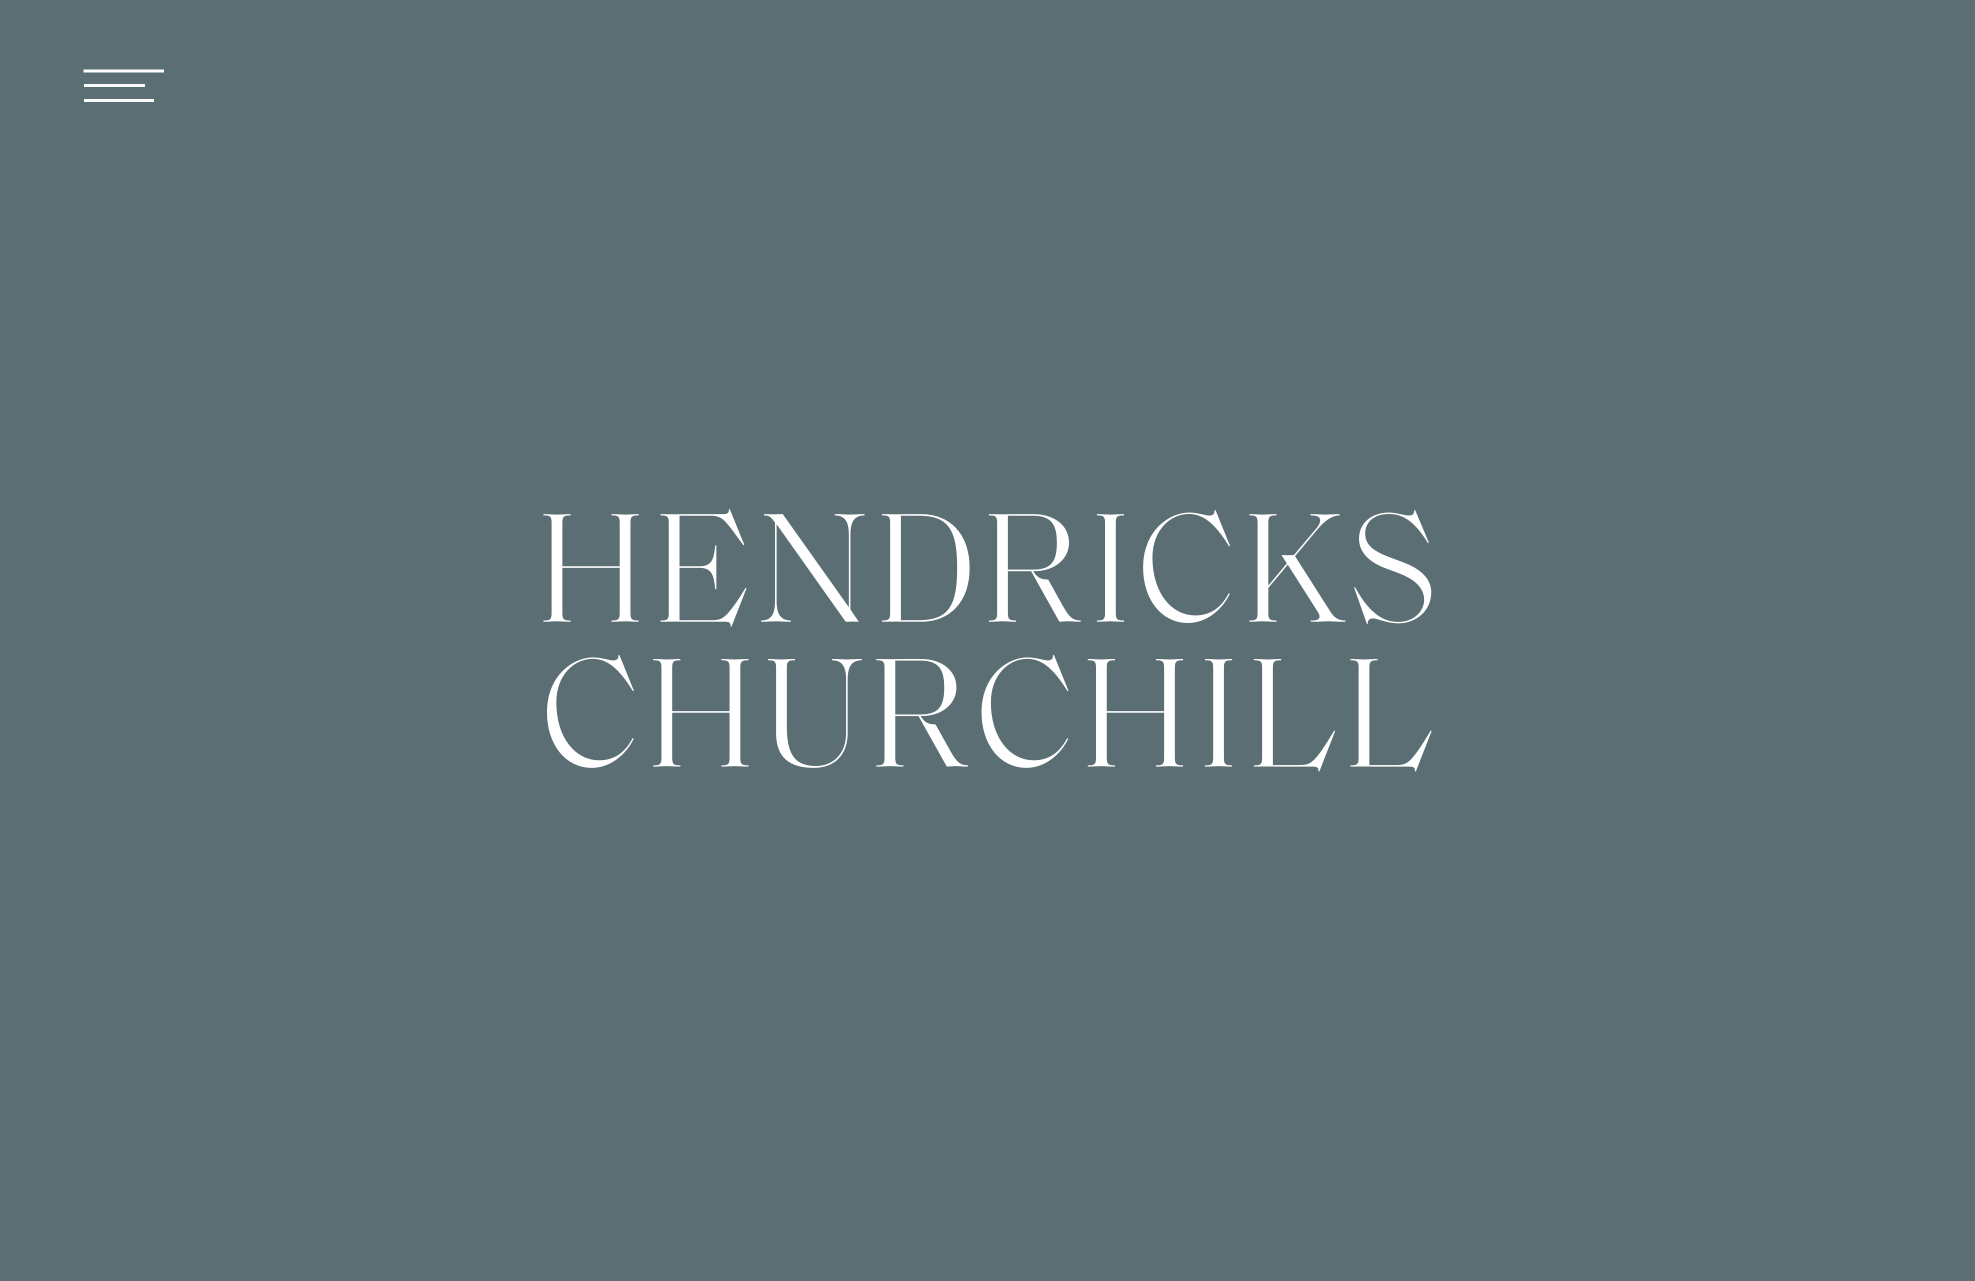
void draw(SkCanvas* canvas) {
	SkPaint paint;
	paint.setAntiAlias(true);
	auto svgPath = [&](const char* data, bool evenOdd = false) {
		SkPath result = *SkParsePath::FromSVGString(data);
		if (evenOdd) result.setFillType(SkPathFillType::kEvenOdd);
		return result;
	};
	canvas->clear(0xff5a6e73);
	paint.setStroke(true);
	paint.setStrokeWidth(2.9);
	paint.setColor(0xffffffff);
	canvas->drawPath(svgPath("M83.5 71H164"), paint);
	paint.setStroke(false);
	paint.setColor(0xfffafafa);
	canvas->drawRect(SkRect::MakeXYWH(84, 84, 61, 3), paint);
	canvas->drawRect(SkRect::MakeXYWH(84, 99, 70, 3), paint);
	canvas->drawImageRect(SkImages::DeferredFromEncodedData(SkData::MakeFromFileName("img1.png")), SkRect::MakeXYWH(543, 509, 889, 263), SkSamplingOptions());
}
